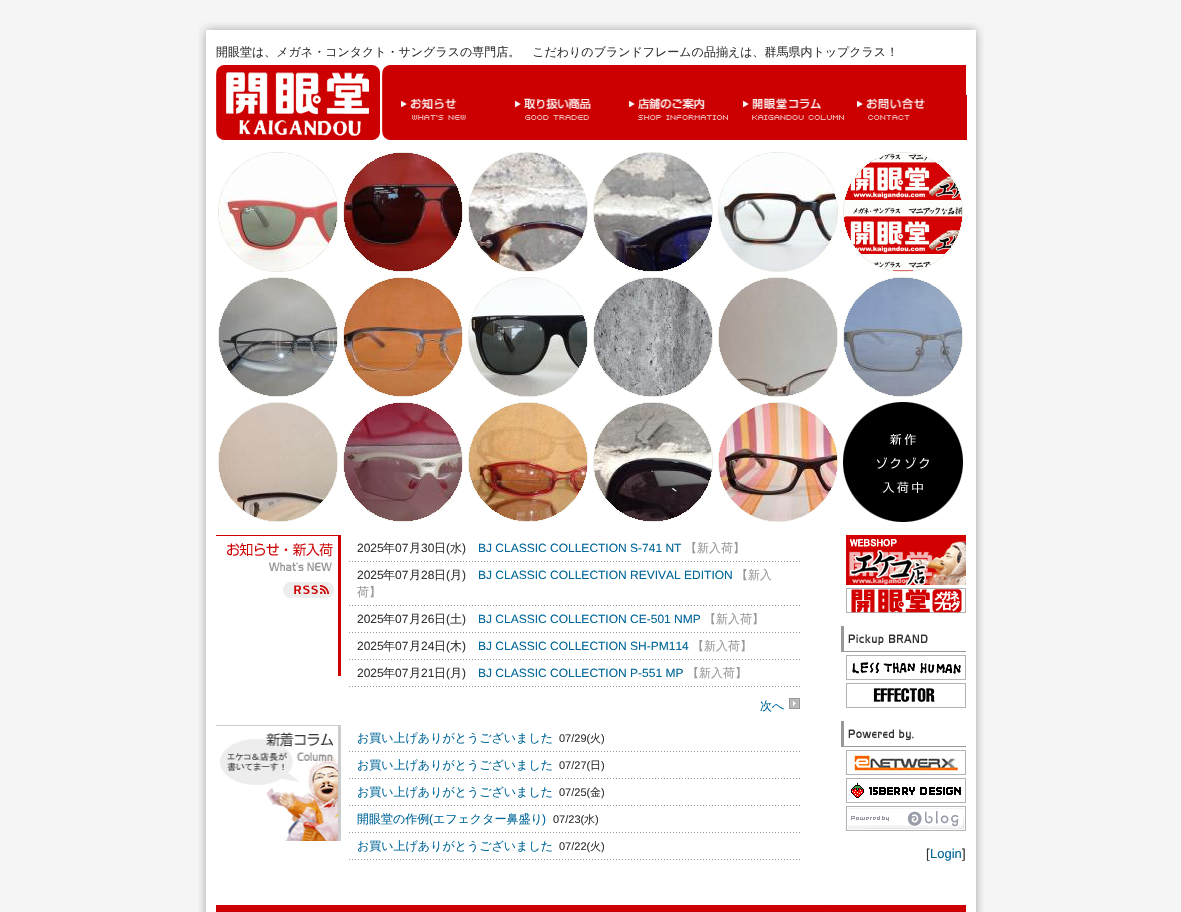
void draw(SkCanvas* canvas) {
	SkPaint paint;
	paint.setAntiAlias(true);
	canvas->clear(0xfff5f5f5);
	canvas->drawImageRect(SkImages::DeferredFromEncodedData(SkData::MakeFromFileName("img1.png")), SkRect::MakeXYWH(198, 22, 786, 128), SkSamplingOptions());
	SkFont f1(fontMgr->matchFamilyStyle("WenQuanYi Zen Hei", SkFontStyle(500, SkFontStyle::kNormal_Width, SkFontStyle::kUpright_Slant)), 12);
	f1.setSubpixel(true);
	paint.setColor(0xff333333);
	canvas->drawString("開眼堂は、メガネ・コンタクト・サングラスの専門店。　こだわりのブランドフレームの品揃えは、群馬県内トップクラス！", 216, 56, f1, paint);
	canvas->drawImageRect(SkImages::DeferredFromEncodedData(SkData::MakeFromFileName("img2.png")), SkRect::MakeXYWH(382, 65, 584, 75), SkSamplingOptions());
	canvas->drawImageRect(SkImages::DeferredFromEncodedData(SkData::MakeFromFileName("img3.png")), SkRect::MakeXYWH(216, 65, 164, 75), SkSamplingOptions());
	canvas->drawImageRect(SkImages::DeferredFromEncodedData(SkData::MakeFromFileName("img4.png")), SkRect::MakeXYWH(401, 95, 109, 45), SkSamplingOptions());
	canvas->drawImageRect(SkImages::DeferredFromEncodedData(SkData::MakeFromFileName("img5.png")), SkRect::MakeXYWH(510, 95, 114, 45), SkSamplingOptions());
	canvas->drawImageRect(SkImages::DeferredFromEncodedData(SkData::MakeFromFileName("img6.png")), SkRect::MakeXYWH(624, 95, 114, 45), SkSamplingOptions());
	canvas->drawImageRect(SkImages::DeferredFromEncodedData(SkData::MakeFromFileName("img7.png")), SkRect::MakeXYWH(738, 95, 114, 45), SkSamplingOptions());
	canvas->drawImageRect(SkImages::DeferredFromEncodedData(SkData::MakeFromFileName("img8.png")), SkRect::MakeXYWH(852, 95, 115, 45), SkSamplingOptions());
	canvas->drawImageRect(SkImages::DeferredFromEncodedData(SkData::MakeFromFileName("img9.png")), SkRect::MakeXYWH(198, 150, 786, 735), SkSamplingOptions());
	canvas->drawImageRect(SkImages::DeferredFromEncodedData(SkData::MakeFromFileName("img10.png")), SkRect::MakeXYWH(219, 153, 118, 118), SkSamplingOptions());
	canvas->drawImageRect(SkImages::DeferredFromEncodedData(SkData::MakeFromFileName("img11.png")), SkRect::MakeXYWH(216, 150, 125, 125), SkSamplingOptions());
	canvas->drawImageRect(SkImages::DeferredFromEncodedData(SkData::MakeFromFileName("img12.png")), SkRect::MakeXYWH(344, 153, 118, 118), SkSamplingOptions());
	canvas->drawImageRect(SkImages::DeferredFromEncodedData(SkData::MakeFromFileName("img13.png")), SkRect::MakeXYWH(341, 150, 125, 125), SkSamplingOptions());
	canvas->drawImageRect(SkImages::DeferredFromEncodedData(SkData::MakeFromFileName("img14.png")), SkRect::MakeXYWH(469, 153, 118, 118), SkSamplingOptions());
	canvas->drawImageRect(SkImages::DeferredFromEncodedData(SkData::MakeFromFileName("img15.png")), SkRect::MakeXYWH(466, 150, 125, 125), SkSamplingOptions());
	canvas->drawImageRect(SkImages::DeferredFromEncodedData(SkData::MakeFromFileName("img16.png")), SkRect::MakeXYWH(594, 153, 118, 118), SkSamplingOptions());
	canvas->drawImageRect(SkImages::DeferredFromEncodedData(SkData::MakeFromFileName("img17.png")), SkRect::MakeXYWH(591, 150, 125, 125), SkSamplingOptions());
	canvas->drawImageRect(SkImages::DeferredFromEncodedData(SkData::MakeFromFileName("img18.png")), SkRect::MakeXYWH(719, 153, 118, 118), SkSamplingOptions());
	canvas->drawImageRect(SkImages::DeferredFromEncodedData(SkData::MakeFromFileName("img19.png")), SkRect::MakeXYWH(716, 150, 125, 125), SkSamplingOptions());
	canvas->drawImageRect(SkImages::DeferredFromEncodedData(SkData::MakeFromFileName("img20.png")), SkRect::MakeXYWH(844, 153, 118, 118), SkSamplingOptions());
	canvas->drawImageRect(SkImages::DeferredFromEncodedData(SkData::MakeFromFileName("img21.png")), SkRect::MakeXYWH(843, 152, 123, 123), SkSamplingOptions());
	canvas->drawImageRect(SkImages::DeferredFromEncodedData(SkData::MakeFromFileName("img22.png")), SkRect::MakeXYWH(219, 278, 118, 118), SkSamplingOptions());
	canvas->drawImageRect(SkImages::DeferredFromEncodedData(SkData::MakeFromFileName("img23.png")), SkRect::MakeXYWH(216, 275, 125, 125), SkSamplingOptions());
	canvas->drawImageRect(SkImages::DeferredFromEncodedData(SkData::MakeFromFileName("img24.png")), SkRect::MakeXYWH(344, 278, 118, 118), SkSamplingOptions());
	canvas->drawImageRect(SkImages::DeferredFromEncodedData(SkData::MakeFromFileName("img25.png")), SkRect::MakeXYWH(341, 275, 125, 125), SkSamplingOptions());
	canvas->drawImageRect(SkImages::DeferredFromEncodedData(SkData::MakeFromFileName("img26.png")), SkRect::MakeXYWH(469, 278, 118, 118), SkSamplingOptions());
	canvas->drawImageRect(SkImages::DeferredFromEncodedData(SkData::MakeFromFileName("img27.png")), SkRect::MakeXYWH(466, 275, 125, 125), SkSamplingOptions());
	canvas->drawImageRect(SkImages::DeferredFromEncodedData(SkData::MakeFromFileName("img28.png")), SkRect::MakeXYWH(594, 278, 118, 118), SkSamplingOptions());
	canvas->drawImageRect(SkImages::DeferredFromEncodedData(SkData::MakeFromFileName("img29.png")), SkRect::MakeXYWH(591, 275, 125, 125), SkSamplingOptions());
	canvas->drawImageRect(SkImages::DeferredFromEncodedData(SkData::MakeFromFileName("img30.png")), SkRect::MakeXYWH(719, 278, 118, 118), SkSamplingOptions());
	canvas->drawImageRect(SkImages::DeferredFromEncodedData(SkData::MakeFromFileName("img31.png")), SkRect::MakeXYWH(716, 275, 125, 125), SkSamplingOptions());
	canvas->drawImageRect(SkImages::DeferredFromEncodedData(SkData::MakeFromFileName("img32.png")), SkRect::MakeXYWH(844, 278, 118, 118), SkSamplingOptions());
	canvas->drawImageRect(SkImages::DeferredFromEncodedData(SkData::MakeFromFileName("img33.png")), SkRect::MakeXYWH(841, 275, 125, 125), SkSamplingOptions());
	canvas->drawImageRect(SkImages::DeferredFromEncodedData(SkData::MakeFromFileName("img34.png")), SkRect::MakeXYWH(219, 403, 118, 118), SkSamplingOptions());
	canvas->drawImageRect(SkImages::DeferredFromEncodedData(SkData::MakeFromFileName("img35.png")), SkRect::MakeXYWH(216, 400, 125, 125), SkSamplingOptions());
	canvas->drawImageRect(SkImages::DeferredFromEncodedData(SkData::MakeFromFileName("img36.png")), SkRect::MakeXYWH(344, 403, 118, 118), SkSamplingOptions());
	canvas->drawImageRect(SkImages::DeferredFromEncodedData(SkData::MakeFromFileName("img37.png")), SkRect::MakeXYWH(341, 400, 125, 125), SkSamplingOptions());
	canvas->drawImageRect(SkImages::DeferredFromEncodedData(SkData::MakeFromFileName("img38.png")), SkRect::MakeXYWH(469, 403, 118, 118), SkSamplingOptions());
	canvas->drawImageRect(SkImages::DeferredFromEncodedData(SkData::MakeFromFileName("img39.png")), SkRect::MakeXYWH(466, 400, 125, 125), SkSamplingOptions());
	canvas->drawImageRect(SkImages::DeferredFromEncodedData(SkData::MakeFromFileName("img40.png")), SkRect::MakeXYWH(594, 403, 118, 118), SkSamplingOptions());
	canvas->drawImageRect(SkImages::DeferredFromEncodedData(SkData::MakeFromFileName("img41.png")), SkRect::MakeXYWH(591, 400, 125, 125), SkSamplingOptions());
	canvas->drawImageRect(SkImages::DeferredFromEncodedData(SkData::MakeFromFileName("img42.png")), SkRect::MakeXYWH(719, 403, 118, 118), SkSamplingOptions());
	canvas->drawImageRect(SkImages::DeferredFromEncodedData(SkData::MakeFromFileName("img43.png")), SkRect::MakeXYWH(716, 400, 125, 125), SkSamplingOptions());
	canvas->drawImageRect(SkImages::DeferredFromEncodedData(SkData::MakeFromFileName("img44.png")), SkRect::MakeXYWH(843, 402, 120, 120), SkSamplingOptions());
	paint.setColor(0xffcc0000);
	canvas->drawRect(SkRect::MakeXYWH(216, 535, 125, 1), paint);
	canvas->drawRect(SkRect::MakeXYWH(338, 535, 3, 141), paint);
	canvas->drawImageRect(SkImages::DeferredFromEncodedData(SkData::MakeFromFileName("img45.png")), SkRect::MakeXYWH(227, 543, 106, 28), SkSamplingOptions());
	canvas->drawImageRect(SkImages::DeferredFromEncodedData(SkData::MakeFromFileName("img46.png")), SkRect::MakeXYWH(283, 582, 51, 16), SkSamplingOptions());
	canvas->drawImageRect(SkImages::DeferredFromEncodedData(SkData::MakeFromFileName("img47.png")), SkRect::MakeXYWH(349, 561, 451, 1), SkSamplingOptions());
	SkFont f2(fontMgr->matchFamilyStyle("Liberation Sans", SkFontStyle::Normal()), 12);
	f2.setSubpixel(true);
	paint.setColor(0xff333333);
	canvas->drawString("2025", 357, 552, f2, paint);
	canvas->drawString("年", 383, 552, f1, paint);
	canvas->drawString("07", 395, 552, f2, paint);
	canvas->drawString("月", 409, 552, f1, paint);
	canvas->drawString("30", 421, 552, f2, paint);
	canvas->drawString("日", 434, 552, f1, paint);
	canvas->drawString("(", 446, 552, f2, paint);
	canvas->drawString("水", 450, 552, f1, paint);
	canvas->drawString(")", 462, 552, f2, paint);
	paint.setColor(0xff006699);
	canvas->drawString("BJ CLASSIC COLLECTION S-741 NT", 478, 552, f2, paint);
	paint.setColor(0xff999999);
	canvas->drawString("【新入荷】", 685, 552, f1, paint);
	canvas->drawImageRect(SkImages::DeferredFromEncodedData(SkData::MakeFromFileName("img47.png")), SkRect::MakeXYWH(349, 605, 451, 1), SkSamplingOptions());
	paint.setColor(0xff333333);
	canvas->drawString("2025", 357, 579, f2, paint);
	canvas->drawString("年", 383, 579, f1, paint);
	canvas->drawString("07", 395, 579, f2, paint);
	canvas->drawString("月", 409, 579, f1, paint);
	canvas->drawString("28", 421, 579, f2, paint);
	canvas->drawString("日", 434, 579, f1, paint);
	canvas->drawString("(", 446, 579, f2, paint);
	canvas->drawString("月", 450, 579, f1, paint);
	canvas->drawString(")", 462, 579, f2, paint);
	paint.setColor(0xff006699);
	canvas->drawString("BJ CLASSIC COLLECTION REVIVAL EDITION", 478, 579, f2, paint);
	paint.setColor(0xff999999);
	canvas->drawString("【新入", 736, 579, f1, paint);
	canvas->drawString("荷】", 357, 596, f1, paint);
	canvas->drawImageRect(SkImages::DeferredFromEncodedData(SkData::MakeFromFileName("img47.png")), SkRect::MakeXYWH(349, 632, 451, 1), SkSamplingOptions());
	paint.setColor(0xff333333);
	canvas->drawString("2025", 357, 623, f2, paint);
	canvas->drawString("年", 383, 623, f1, paint);
	canvas->drawString("07", 395, 623, f2, paint);
	canvas->drawString("月", 409, 623, f1, paint);
	canvas->drawString("26", 421, 623, f2, paint);
	canvas->drawString("日", 434, 623, f1, paint);
	canvas->drawString("(", 446, 623, f2, paint);
	canvas->drawString("土", 450, 623, f1, paint);
	canvas->drawString(")", 462, 623, f2, paint);
	paint.setColor(0xff006699);
	canvas->drawString("BJ CLASSIC COLLECTION CE-501 NMP", 478, 623, f2, paint);
	paint.setColor(0xff999999);
	canvas->drawString("【新入荷】", 704, 623, f1, paint);
	canvas->drawImageRect(SkImages::DeferredFromEncodedData(SkData::MakeFromFileName("img47.png")), SkRect::MakeXYWH(349, 659, 451, 1), SkSamplingOptions());
	paint.setColor(0xff333333);
	canvas->drawString("2025", 357, 650, f2, paint);
	canvas->drawString("年", 383, 650, f1, paint);
	canvas->drawString("07", 395, 650, f2, paint);
	canvas->drawString("月", 409, 650, f1, paint);
	canvas->drawString("24", 421, 650, f2, paint);
	canvas->drawString("日", 434, 650, f1, paint);
	canvas->drawString("(", 446, 650, f2, paint);
	canvas->drawString("木", 450, 650, f1, paint);
	canvas->drawString(")", 462, 650, f2, paint);
	paint.setColor(0xff006699);
	canvas->drawString("BJ CLASSIC COLLECTION SH-PM114", 478, 650, f2, paint);
	paint.setColor(0xff999999);
	canvas->drawString("【新入荷】", 692, 650, f1, paint);
	canvas->drawImageRect(SkImages::DeferredFromEncodedData(SkData::MakeFromFileName("img47.png")), SkRect::MakeXYWH(349, 686, 451, 1), SkSamplingOptions());
	paint.setColor(0xff333333);
	canvas->drawString("2025", 357, 677, f2, paint);
	canvas->drawString("年", 383, 677, f1, paint);
	canvas->drawString("07", 395, 677, f2, paint);
	canvas->drawString("月", 409, 677, f1, paint);
	canvas->drawString("21", 421, 677, f2, paint);
	canvas->drawString("日", 434, 677, f1, paint);
	canvas->drawString("(", 446, 677, f2, paint);
	canvas->drawString("月", 450, 677, f1, paint);
	canvas->drawString(")", 462, 677, f2, paint);
	paint.setColor(0xff006699);
	canvas->drawString("BJ CLASSIC COLLECTION P-551 MP", 478, 677, f2, paint);
	paint.setColor(0xff999999);
	canvas->drawString("【新入荷】", 687, 677, f1, paint);
	paint.setColor(0xff006699);
	canvas->drawString("次へ", 760, 710, f1, paint);
	canvas->drawImageRect(SkImages::DeferredFromEncodedData(SkData::MakeFromFileName("img48.png")), SkRect::MakeXYWH(789, 698, 11, 11), SkSamplingOptions());
	canvas->drawImageRect(SkImages::DeferredFromEncodedData(SkData::MakeFromFileName("img49.png")), SkRect::MakeXYWH(220, 732, 118, 109), SkSamplingOptions());
	paint.setColor(0xffcccccc);
	canvas->drawRect(SkRect::MakeXYWH(216, 725, 125, 1), paint);
	canvas->drawRect(SkRect::MakeXYWH(338, 725, 3, 116), paint);
	canvas->drawImageRect(SkImages::DeferredFromEncodedData(SkData::MakeFromFileName("img47.png")), SkRect::MakeXYWH(349, 751, 451, 1), SkSamplingOptions());
	paint.setColor(0xff006699);
	canvas->drawString("お買い上げありがとうございました", 357, 742, f1, paint);
	SkFont f3(fontMgr->matchFamilyStyle("Liberation Sans", SkFontStyle::Normal()), 11);
	f3.setSubpixel(true);
	paint.setColor(0xff333333);
	canvas->drawString("07/29(", 559, 742, f3, paint);
	SkFont f4(fontMgr->matchFamilyStyle("WenQuanYi Zen Hei", SkFontStyle(500, SkFontStyle::kNormal_Width, SkFontStyle::kUpright_Slant)), 11);
	f4.setSubpixel(true);
	canvas->drawString("火", 590, 742, f4, paint);
	canvas->drawString(")", 601, 742, f3, paint);
	canvas->drawImageRect(SkImages::DeferredFromEncodedData(SkData::MakeFromFileName("img47.png")), SkRect::MakeXYWH(349, 778, 451, 1), SkSamplingOptions());
	paint.setColor(0xff006699);
	canvas->drawString("お買い上げありがとうございました", 357, 769, f1, paint);
	paint.setColor(0xff333333);
	canvas->drawString("07/27(", 559, 769, f3, paint);
	canvas->drawString("日", 590, 769, f4, paint);
	canvas->drawString(")", 601, 769, f3, paint);
	canvas->drawImageRect(SkImages::DeferredFromEncodedData(SkData::MakeFromFileName("img47.png")), SkRect::MakeXYWH(349, 805, 451, 1), SkSamplingOptions());
	paint.setColor(0xff006699);
	canvas->drawString("お買い上げありがとうございました", 357, 796, f1, paint);
	paint.setColor(0xff333333);
	canvas->drawString("07/25(", 559, 796, f3, paint);
	canvas->drawString("金", 590, 796, f4, paint);
	canvas->drawString(")", 601, 796, f3, paint);
	canvas->drawImageRect(SkImages::DeferredFromEncodedData(SkData::MakeFromFileName("img47.png")), SkRect::MakeXYWH(349, 832, 451, 1), SkSamplingOptions());
	paint.setColor(0xff006699);
	canvas->drawString("開眼堂の作例", 357, 823, f1, paint);
	canvas->drawString("(", 429, 823, f2, paint);
	canvas->drawString("エフェクター鼻盛り", 433, 823, f1, paint);
	canvas->drawString(")", 542, 823, f2, paint);
	paint.setColor(0xff333333);
	canvas->drawString("07/23(", 553, 823, f3, paint);
	canvas->drawString("水", 584, 823, f4, paint);
	canvas->drawString(")", 595, 823, f3, paint);
	canvas->drawImageRect(SkImages::DeferredFromEncodedData(SkData::MakeFromFileName("img47.png")), SkRect::MakeXYWH(349, 859, 451, 1), SkSamplingOptions());
	paint.setColor(0xff006699);
	canvas->drawString("お買い上げありがとうございました", 357, 850, f1, paint);
	paint.setColor(0xff333333);
	canvas->drawString("07/22(", 559, 850, f3, paint);
	canvas->drawString("火", 590, 850, f4, paint);
	canvas->drawString(")", 601, 850, f3, paint);
	canvas->drawImageRect(SkImages::DeferredFromEncodedData(SkData::MakeFromFileName("img50.png")), SkRect::MakeXYWH(846, 535, 120, 50), SkSamplingOptions());
	canvas->drawImageRect(SkImages::DeferredFromEncodedData(SkData::MakeFromFileName("img51.png")), SkRect::MakeXYWH(846, 588, 120, 25), SkSamplingOptions());
	canvas->drawImageRect(SkImages::DeferredFromEncodedData(SkData::MakeFromFileName("img52.png")), SkRect::MakeXYWH(841, 626, 125, 26), SkSamplingOptions());
	canvas->drawImageRect(SkImages::DeferredFromEncodedData(SkData::MakeFromFileName("img53.png")), SkRect::MakeXYWH(846, 655, 120, 25), SkSamplingOptions());
	canvas->drawImageRect(SkImages::DeferredFromEncodedData(SkData::MakeFromFileName("img54.png")), SkRect::MakeXYWH(846, 683, 120, 25), SkSamplingOptions());
	canvas->drawImageRect(SkImages::DeferredFromEncodedData(SkData::MakeFromFileName("img55.png")), SkRect::MakeXYWH(841, 721, 125, 26), SkSamplingOptions());
	canvas->drawImageRect(SkImages::DeferredFromEncodedData(SkData::MakeFromFileName("img56.png")), SkRect::MakeXYWH(846, 750, 120, 25), SkSamplingOptions());
	canvas->drawImageRect(SkImages::DeferredFromEncodedData(SkData::MakeFromFileName("img57.png")), SkRect::MakeXYWH(846, 778, 120, 25), SkSamplingOptions());
	canvas->drawImageRect(SkImages::DeferredFromEncodedData(SkData::MakeFromFileName("img58.png")), SkRect::MakeXYWH(846, 806, 120, 25), SkSamplingOptions());
	SkFont f5(fontMgr->matchFamilyStyle("Liberation Sans", SkFontStyle::Normal()), 13);
	f5.setSubpixel(true);
	canvas->drawString("[", 926, 858, f5, paint);
	paint.setColor(0xff006699);
	canvas->drawString("Login", 930, 858, f5, paint);
	paint.setColor(0xff333333);
	canvas->drawString("]", 962, 858, f5, paint);
	canvas->drawImageRect(SkImages::DeferredFromEncodedData(SkData::MakeFromFileName("img59.png")), SkRect::MakeXYWH(198, 885, 786, 27), SkSamplingOptions());
	paint.setColor(0xffcc0000);
	canvas->drawRect(SkRect::MakeXYWH(216, 905, 750, 7), paint);
	paint.setColor(0xffcf1010);
	canvas->drawRect(SkRect::MakeXYWH(824, 911, 1, 1), paint);
}
